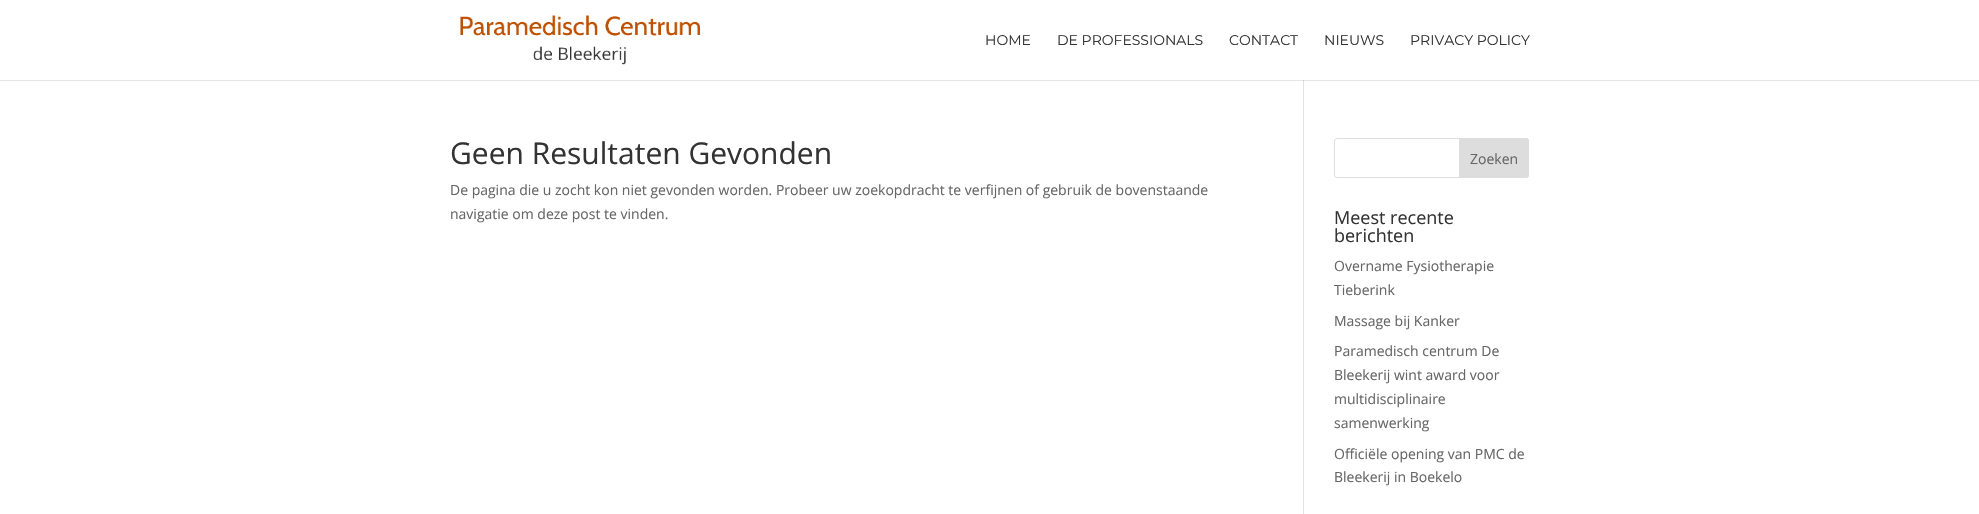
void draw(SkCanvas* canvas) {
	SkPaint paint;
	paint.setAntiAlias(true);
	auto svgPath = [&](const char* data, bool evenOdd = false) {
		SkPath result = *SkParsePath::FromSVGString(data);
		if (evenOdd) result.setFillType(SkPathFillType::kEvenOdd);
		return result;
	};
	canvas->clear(0xffffffff);
	paint.setColor(0xffe6e6e6);
	canvas->drawRect(SkRect::MakeXYWH(0, 80, 1979, 1), paint);
	canvas->drawImageRect(SkImages::DeferredFromEncodedData(SkData::MakeFromFileName("img1.png")), SkRect::MakeXYWH(460, 15, 241, 50), SkSamplingOptions());
	SkFont f1(fontMgr->matchFamilyStyle("Montserrat", SkFontStyle(100, SkFontStyle::kNormal_Width, SkFontStyle::kUpright_Slant)), 14);
	f1.setSubpixel(true);
	paint.setColor(0xff333333);
	canvas->drawString("HOME", 985, 45, f1, paint);
	canvas->drawString("DE PROFESSIONALS", 1057, 45, f1, paint);
	canvas->drawString("CONTACT", 1229, 45, f1, paint);
	canvas->drawString("NIEUWS", 1324, 45, f1, paint);
	canvas->drawString("PRIVACY POLICY", 1410, 45, f1, paint);
	paint.setColor(0xffe2e2e2);
	canvas->drawRect(SkRect::MakeXYWH(1303, 80, 1, 434), paint);
	paint.setColor(0xffcbcbcb);
	canvas->drawRect(SkRect::MakeXYWH(1303, 80, 1, 1), paint);
	SkFont f2(fontMgr->matchFamilyStyle("Open Sans", SkFontStyle::Normal()), 30);
	f2.setSubpixel(true);
	paint.setColor(0xff333333);
	canvas->drawString("Geen Resultaten Gevonden", 450, 164, f2, paint);
	SkFont f3(fontMgr->matchFamilyStyle("Open Sans", SkFontStyle::Normal()), 14);
	f3.setSubpixel(true);
	paint.setColor(0xff666666);
	canvas->drawString("De pagina die u zocht kon niet gevonden worden. Probeer uw zoekopdracht te verfijnen of gebruik de bovenstaande", 450, 195, f3, paint);
	canvas->drawString("navigatie om deze post te vinden.", 450, 219, f3, paint);
	paint.setStroke(true);
	paint.setStrokeWidth(1);
	paint.setColor(0xffdddddd);
	canvas->drawRoundRect(SkRect::MakeXYWH(1334.5, 138.5, 194, 39), 2.5, 2.5, paint);
	paint.setStroke(false);
	canvas->drawPath(svgPath("M1459.5 138.5H1526C1527.5 138.5 1528.5 139.5 1528.5 141V175C1528.5 176.5 1527.5 177.5 1526 177.5H1459.5Z"), paint);
	paint.setStroke(true);
	canvas->drawPath(svgPath("M1459.5 138.5H1526C1527.5 138.5 1528.5 139.5 1528.5 141V175C1528.5 176.5 1527.5 177.5 1526 177.5H1459.5Z"), paint);
	paint.setStroke(false);
	paint.setColor(0xff666666);
	canvas->drawString("Zoeken", 1470, 164, f3, paint);
	SkFont f4(fontMgr->matchFamilyStyle("Open Sans", SkFontStyle::Normal()), 18);
	f4.setSubpixel(true);
	paint.setColor(0xff333333);
	canvas->drawString("Meest recente", 1334, 224, f4, paint);
	canvas->drawString("berichten", 1334, 242, f4, paint);
	paint.setColor(0xff666666);
	canvas->drawString("Overname Fysiotherapie", 1334, 271, f3, paint);
	canvas->drawString("Tieberink", 1334, 295, f3, paint);
	canvas->drawString("Massage bij Kanker", 1334, 326, f3, paint);
	canvas->drawString("Paramedisch centrum De", 1334, 356, f3, paint);
	canvas->drawString("Bleekerij wint award voor", 1334, 380, f3, paint);
	canvas->drawString("multidisciplinaire", 1334, 404, f3, paint);
	canvas->drawString("samenwerking", 1334, 428, f3, paint);
	canvas->drawString("Officiële opening van PMC de", 1334, 459, f3, paint);
	canvas->drawString("Bleekerij in Boekelo", 1334, 482, f3, paint);
}
